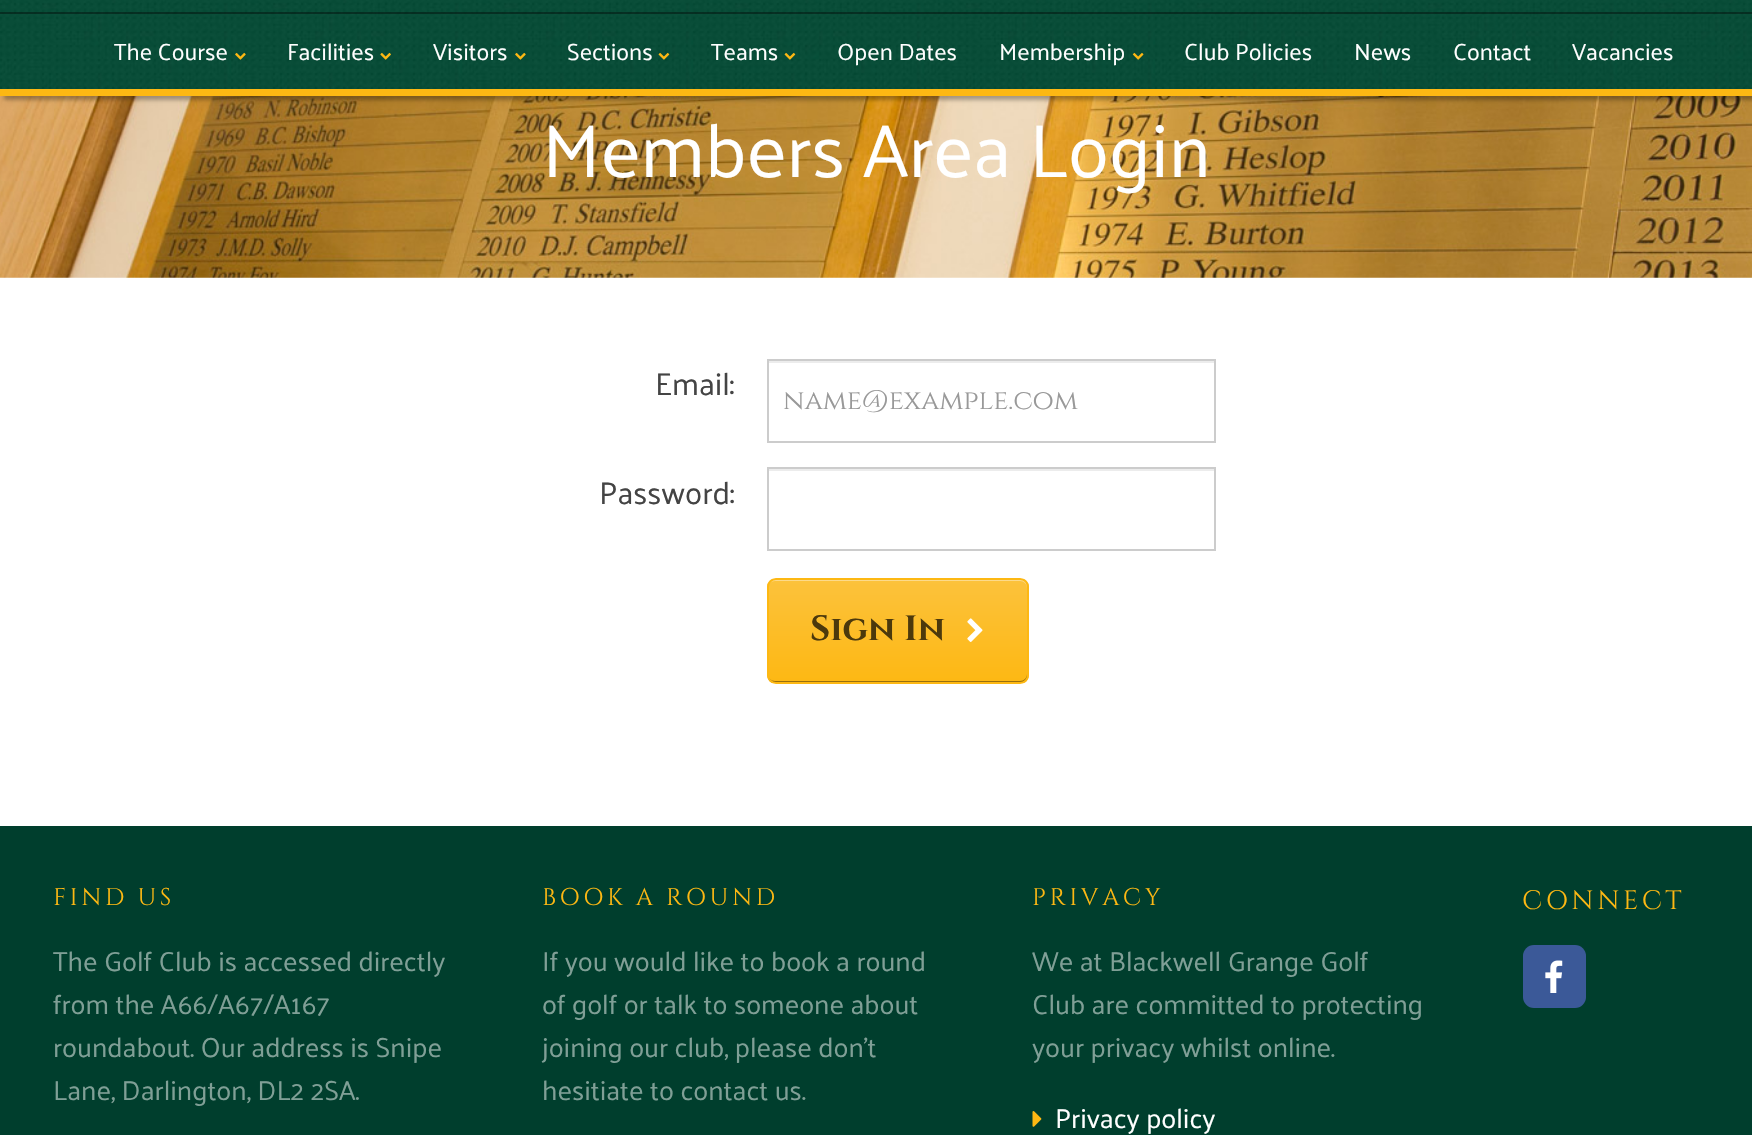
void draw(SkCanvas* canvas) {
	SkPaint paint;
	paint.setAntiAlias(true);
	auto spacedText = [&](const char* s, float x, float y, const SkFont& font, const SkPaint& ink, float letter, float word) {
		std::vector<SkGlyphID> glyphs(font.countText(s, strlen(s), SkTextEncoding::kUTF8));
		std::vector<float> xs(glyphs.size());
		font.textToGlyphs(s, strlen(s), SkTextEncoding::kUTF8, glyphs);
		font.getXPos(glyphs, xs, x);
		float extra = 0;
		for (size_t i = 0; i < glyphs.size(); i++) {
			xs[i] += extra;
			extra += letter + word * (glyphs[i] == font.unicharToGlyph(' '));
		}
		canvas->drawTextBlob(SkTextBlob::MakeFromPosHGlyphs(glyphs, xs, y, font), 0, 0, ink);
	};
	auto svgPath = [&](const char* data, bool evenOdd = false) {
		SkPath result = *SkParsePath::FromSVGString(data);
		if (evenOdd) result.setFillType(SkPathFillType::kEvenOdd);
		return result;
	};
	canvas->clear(0xffffffff);
	canvas->drawImageRect(SkImages::DeferredFromEncodedData(SkData::MakeFromFileName("img8.png")), SkRect::MakeXYWH(0, 96, 1752, 182), SkSamplingOptions());
	paint.setColor(0x4d000000);
	paint.setMaskFilter(SkMaskFilter::MakeBlur(kNormal_SkBlurStyle, 2));
	canvas->drawRect(SkRect::MakeXYWH(4, -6, 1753, 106), paint);
	paint.setMaskFilter(nullptr);
	canvas->drawImageRect(SkImages::DeferredFromEncodedData(SkData::MakeFromFileName("img1.png")), SkRect::MakeXYWH(0, 0, 1752, 89), SkSamplingOptions());
	paint.setColor(0xfffdb813);
	canvas->drawRect(SkRect::MakeXYWH(0, 89, 1752, 7), paint);
	paint.setColor(0x66000000);
	canvas->drawRect(SkRect::MakeXYWH(0, 12, 1752, 2), paint);
	SkFont f1(fontMgr->matchFamilyStyle("Palanquin", SkFontStyle::Normal()), 23.5);
	f1.setSubpixel(true);
	paint.setColor(0xffffffff);
	canvas->drawString("The Course", 114, 60, f1, paint);
	canvas->drawImageRect(SkImages::DeferredFromEncodedData(SkData::MakeFromFileName("img2.png")), SkRect::MakeXYWH(235, 52, 11, 8), SkSamplingOptions());
	canvas->drawString("Facilities", 287, 60, f1, paint);
	canvas->drawImageRect(SkImages::DeferredFromEncodedData(SkData::MakeFromFileName("img3.png")), SkRect::MakeXYWH(380, 52, 11, 8), SkSamplingOptions());
	canvas->drawString("Visitors", 433, 60, f1, paint);
	canvas->drawImageRect(SkImages::DeferredFromEncodedData(SkData::MakeFromFileName("img4.png")), SkRect::MakeXYWH(515, 52, 11, 8), SkSamplingOptions());
	canvas->drawString("Sections", 567, 60, f1, paint);
	canvas->drawImageRect(SkImages::DeferredFromEncodedData(SkData::MakeFromFileName("img5.png")), SkRect::MakeXYWH(658, 52, 12, 8), SkSamplingOptions());
	canvas->drawString("Teams", 711, 60, f1, paint);
	canvas->drawImageRect(SkImages::DeferredFromEncodedData(SkData::MakeFromFileName("img6.png")), SkRect::MakeXYWH(784, 52, 12, 8), SkSamplingOptions());
	canvas->drawString("Open Dates", 837, 60, f1, paint);
	canvas->drawString("Membership", 999, 60, f1, paint);
	canvas->drawImageRect(SkImages::DeferredFromEncodedData(SkData::MakeFromFileName("img7.png")), SkRect::MakeXYWH(1132, 52, 12, 8), SkSamplingOptions());
	canvas->drawString("Club Policies", 1184, 60, f1, paint);
	canvas->drawString("News", 1354, 60, f1, paint);
	canvas->drawString("Contact", 1453, 60, f1, paint);
	canvas->drawString("Vacancies", 1572, 60, f1, paint);
	SkFont f2(fontMgr->matchFamilyStyle("Palanquin", SkFontStyle::Normal()), 75.5);
	f2.setSubpixel(true);
	canvas->drawString("Members Area Login", 542, 177, f2, paint);
	SkFont f3(fontMgr->matchFamilyStyle("Palanquin", SkFontStyle::Normal()), 31.5);
	f3.setSubpixel(true);
	paint.setColor(0xff444444);
	canvas->drawString("Email:", 655, 395, f3, paint);
	paint.setColor(0xffececec);
	canvas->drawRect(SkRect::MakeXYWH(768, 361, 447, 2), paint);
	paint.setStroke(true);
	paint.setStrokeWidth(2);
	paint.setColor(0xffcccccc);
	canvas->drawRect(SkRect::MakeXYWH(768, 360, 447, 82), paint);
	SkFont f4(fontMgr->matchFamilyStyle("Cinzel", SkFontStyle::Normal()), 27.5);
	f4.setSubpixel(true);
	paint.setStroke(false);
	paint.setColor(0xff999999);
	canvas->drawString("name@example.com", 783, 409, f4, paint);
	paint.setColor(0xff444444);
	canvas->drawString("Password:", 599, 504, f3, paint);
	paint.setColor(0xffececec);
	canvas->drawRect(SkRect::MakeXYWH(768, 469, 447, 2), paint);
	paint.setStroke(true);
	paint.setColor(0xffcccccc);
	canvas->drawRect(SkRect::MakeXYWH(768, 468, 447, 82), paint);
	canvas->save();
	canvas->clipPath(svgPath("M776 578H1020C1025 578 1029 582 1029 587V675C1029 680 1025 684 1020 684H776C771 684 767 680 767 675V587C767 582 771 578 776 578Z"), true);
	paint.setStroke(false);
	{
		const SkColor colors[] = {0xfffcc23c, 0xfffdb813};
		const float stops[] = {0, 1};
		const SkPoint ends[] = {{898, 579}, {898, 683}};
		paint.setShader(SkGradientShader::MakeLinear(ends, colors, stops, 2, SkTileMode::kClamp));
		paint.setAlpha(255);
	}
	canvas->drawRect(SkRect::MakeXYWH(767, 579, 262, 104), paint);
	canvas->restore();
	paint.setShader(nullptr);
	paint.setColor(0xff986e0c);
	canvas->drawPath(svgPath("M768 674V676C768 680 771 683 775 683H1020C1024 683 1027 680 1027 676V674C1027 678 1024 681 1020 681H775C771 681 768 678 768 674Z"), paint);
	paint.setColor(0xfffdda8a);
	canvas->drawPath(svgPath("M775 581H1020C1024 581 1027 584 1027 588V586C1027 582 1024 579 1020 579H775C771 579 768 582 768 586V588C768 584 771 581 775 581Z"), paint);
	paint.setStroke(true);
	paint.setColor(0xfffdb813);
	canvas->drawRoundRect(SkRect::MakeXYWH(768, 579, 260, 104), 8, 8, paint);
	SkFont f5(fontMgr->matchFamilyStyle("Cinzel", SkFontStyle::Bold()), 35);
	f5.setSubpixel(true);
	paint.setStroke(false);
	paint.setColor(0xff4c390c);
	canvas->drawString("Sign In", 810, 640, f5, paint);
	canvas->drawImageRect(SkImages::DeferredFromEncodedData(SkData::MakeFromFileName("img9.png")), SkRect::MakeXYWH(967, 618, 16, 24), SkSamplingOptions());
	paint.setColor(0xff003e2d);
	canvas->drawRect(SkRect::MakeXYWH(0, 826, 1752, 309), paint);
	SkFont f6(fontMgr->matchFamilyStyle("Cinzel", SkFontStyle::Normal()), 24.1);
	f6.setSubpixel(true);
	paint.setColor(0xfffdb813);
	spacedText("FIND US", 53, 905, f6, paint, 3.5, 0);
	SkFont f7(fontMgr->matchFamilyStyle("Palanquin", SkFontStyle::Normal()), 27.5);
	f7.setSubpixel(true);
	paint.setColor(0xff809f96);
	canvas->drawString("The Golf Club is accessed directly", 53, 971, f7, paint);
	canvas->drawString("from the A66/A67/A167", 53, 1014, f7, paint);
	canvas->drawString("roundabout. Our address is Snipe", 53, 1057, f7, paint);
	canvas->drawString("Lane, Darlington, DL2 2SA.", 53, 1100, f7, paint);
	paint.setColor(0xfffdb813);
	spacedText("BOOK A ROUND", 542, 905, f6, paint, 3.5, 0);
	paint.setColor(0xff809f96);
	canvas->drawString("If you would like to book a round", 542, 971, f7, paint);
	canvas->drawString("of golf or talk to someone about", 542, 1014, f7, paint);
	canvas->drawString("joining our club, please don't", 542, 1057, f7, paint);
	canvas->drawString("hesitiate to contact us.", 542, 1100, f7, paint);
	paint.setColor(0xfffdb813);
	spacedText("PRIVACY", 1032, 905, f6, paint, 3.5, 0);
	paint.setColor(0xff809f96);
	canvas->drawString("We at Blackwell Grange Golf", 1032, 971, f7, paint);
	canvas->drawString("Club are committed to protecting", 1032, 1014, f7, paint);
	canvas->drawString("your privacy whilst online.", 1032, 1057, f7, paint);
	canvas->drawImageRect(SkImages::DeferredFromEncodedData(SkData::MakeFromFileName("img10.png")), SkRect::MakeXYWH(1032, 1111, 10, 16), SkSamplingOptions());
	paint.setColor(0xffffffff);
	canvas->drawString("Privacy policy", 1055, 1128, f7, paint);
	SkFont f8(fontMgr->matchFamilyStyle("Cinzel", SkFontStyle::Normal()), 26.5);
	f8.setSubpixel(true);
	paint.setColor(0xfffdb813);
	spacedText("CONNECT", 1522, 909, f8, paint, 3.5, 0);
	paint.setColor(0xff3b5998);
	canvas->drawRoundRect(SkRect::MakeXYWH(1523, 945, 63, 63), 11, 11, paint);
	canvas->drawImageRect(SkImages::DeferredFromEncodedData(SkData::MakeFromFileName("img11.png")), SkRect::MakeXYWH(1545, 960, 18, 33), SkSamplingOptions());
}
